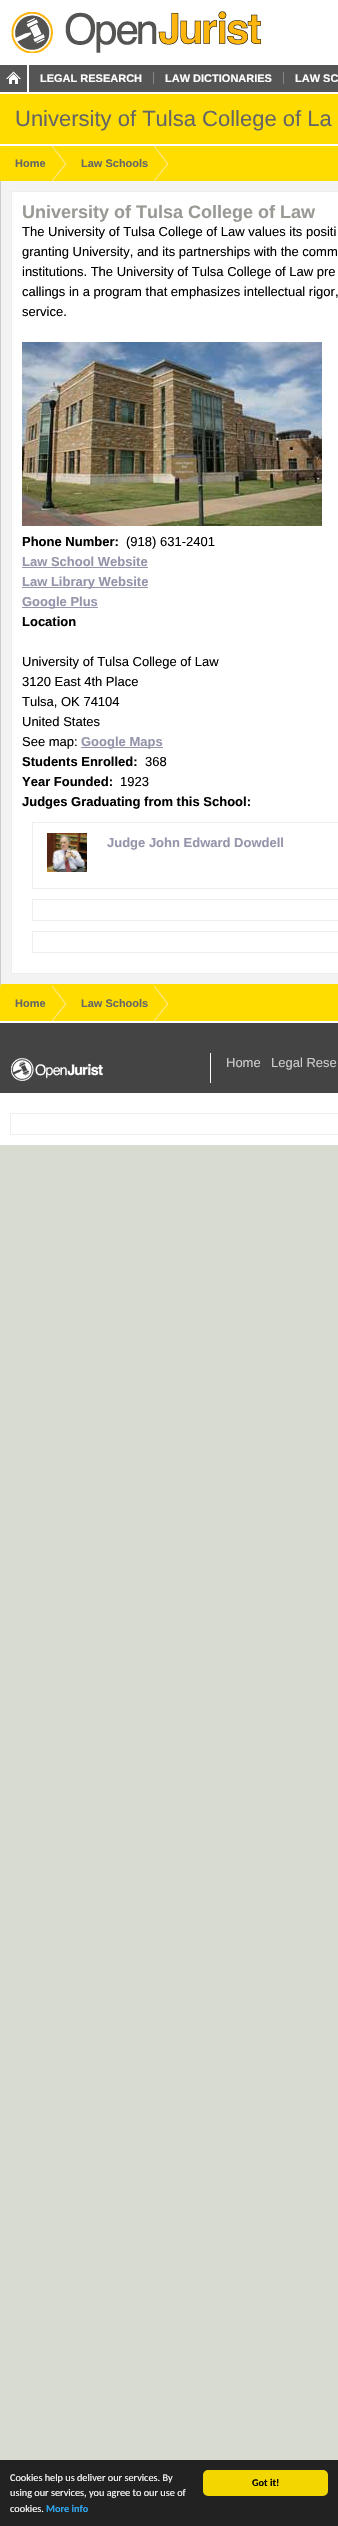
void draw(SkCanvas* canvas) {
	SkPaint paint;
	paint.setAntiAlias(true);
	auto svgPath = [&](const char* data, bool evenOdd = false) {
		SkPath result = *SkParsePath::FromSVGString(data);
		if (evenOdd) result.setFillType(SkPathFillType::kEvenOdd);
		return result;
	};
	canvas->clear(0xffd8dcd0);
	paint.setColor(0xffffffff);
	canvas->drawRect(SkRect::MakeXYWH(0, 0, 338, 1145), paint);
	canvas->drawImageRect(SkImages::DeferredFromEncodedData(SkData::MakeFromFileName("img1.png")), SkRect::MakeXYWH(11, 11, 250, 42), SkSamplingOptions());
	paint.setColor(0xff555555);
	canvas->drawRect(SkRect::MakeXYWH(0, 65, 338, 27), paint);
	canvas->drawImageRect(SkImages::DeferredFromEncodedData(SkData::MakeFromFileName("img2.png")), SkRect::MakeXYWH(6, 71, 15, 13), SkSamplingOptions());
	paint.setColor(0xffffffff);
	canvas->drawRect(SkRect::MakeXYWH(27, 65, 2, 27), paint);
	SkFont f1(fontMgr->matchFamilyStyle("Liberation Sans", SkFontStyle::Bold()), 11);
	f1.setSubpixel(true);
	canvas->drawString("LEGAL RESEARCH", 40, 82, f1, paint);
	paint.setColor(0xff848884);
	canvas->drawRect(SkRect::MakeXYWH(153, 72, 1, 12), paint);
	paint.setColor(0xffffffff);
	canvas->drawString("LAW DICTIONARIES", 165, 82, f1, paint);
	paint.setColor(0xff848884);
	canvas->drawRect(SkRect::MakeXYWH(283, 72, 1, 12), paint);
	paint.setColor(0xffffffff);
	canvas->drawString("LAW SC", 295, 82, f1, paint);
	paint.setColor(0xffffdd00);
	canvas->drawRect(SkRect::MakeXYWH(0, 94, 338, 50), paint);
	SkFont f2(fontMgr->matchFamilyStyle("Liberation Sans", SkFontStyle::Normal()), 22);
	f2.setSubpixel(true);
	paint.setColor(0xff666666);
	canvas->drawString("University of Tulsa College of La", 15, 126, f2, paint);
	paint.setColor(0xffffdd00);
	canvas->drawRect(SkRect::MakeXYWH(0, 146, 338, 35), paint);
	canvas->drawImageRect(SkImages::DeferredFromEncodedData(SkData::MakeFromFileName("img3.png")), SkRect::MakeXYWH(51, 146, 15, 35), SkSamplingOptions());
	paint.setColor(0xff666666);
	canvas->drawString("Home", 15, 167, f1, paint);
	canvas->drawImageRect(SkImages::DeferredFromEncodedData(SkData::MakeFromFileName("img4.png")), SkRect::MakeXYWH(154, 146, 14, 35), SkSamplingOptions());
	canvas->drawString("Law Schools", 81, 167, f1, paint);
	paint.setColor(0xfff3f3f3);
	canvas->drawRect(SkRect::MakeXYWH(1, 181, 337, 803), paint);
	paint.setColor(0xffcccccc);
	canvas->drawRect(SkRect::MakeXYWH(0, 181, 1, 803), paint);
	paint.setColor(0xffffffff);
	canvas->drawRect(SkRect::MakeXYWH(11.5, 191.5, 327, 782), paint);
	paint.setStroke(true);
	paint.setStrokeWidth(1);
	paint.setColor(0xffeeeeee);
	canvas->drawRect(SkRect::MakeXYWH(11.5, 191.5, 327, 782), paint);
	SkFont f3(fontMgr->matchFamilyStyle("Liberation Sans", SkFontStyle::Bold()), 18);
	f3.setSubpixel(true);
	paint.setStroke(false);
	paint.setColor(0xff989a94);
	canvas->drawString("University of Tulsa College of Law", 22, 218, f3, paint);
	SkFont f4(fontMgr->matchFamilyStyle("Liberation Sans", SkFontStyle::Normal()), 13);
	f4.setSubpixel(true);
	paint.setColor(0xff000000);
	canvas->drawString("The University of Tulsa College of Law values its positi", 22, 236, f4, paint);
	canvas->drawString("granting University, and its partnerships with the comm", 22, 256, f4, paint);
	canvas->drawString("institutions. The University of Tulsa College of Law pre", 22, 276, f4, paint);
	canvas->drawString("callings in a program that emphasizes intellectual rigor,", 22, 296, f4, paint);
	canvas->drawString("service.", 22, 316, f4, paint);
	canvas->drawImageRect(SkImages::DeferredFromEncodedData(SkData::MakeFromFileName("img5.png")), SkRect::MakeXYWH(22, 342, 300, 184), SkSamplingOptions());
	SkFont f5(fontMgr->matchFamilyStyle("Liberation Sans", SkFontStyle::Bold()), 13);
	f5.setSubpixel(true);
	canvas->drawString("Phone Number:", 22, 546, f5, paint);
	canvas->drawString("(918) 631-2401", 126, 546, f4, paint);
	paint.setColor(0xff9495ab);
	canvas->drawString("Law School Website", 22, 566, f5, paint);
	canvas->drawRect(SkRect::MakeXYWH(22, 567, 126, 1), paint);
	canvas->drawRect(SkRect::MakeXYWH(22, 587, 126, 1), paint);
	canvas->drawString("Law Library Website", 22, 586, f5, paint);
	canvas->drawRect(SkRect::MakeXYWH(22, 607, 76, 1), paint);
	canvas->drawString("Google Plus", 22, 606, f5, paint);
	paint.setColor(0xff000000);
	canvas->drawString("Location", 22, 626, f5, paint);
	canvas->drawString("University of Tulsa College of Law", 22, 666, f4, paint);
	canvas->drawString("3120 East 4th Place", 22, 686, f4, paint);
	canvas->drawString("Tulsa, OK 74104", 22, 706, f4, paint);
	canvas->drawString("United States", 22, 726, f4, paint);
	canvas->drawString("See map:", 22, 746, f4, paint);
	paint.setColor(0xff9495ab);
	canvas->drawRect(SkRect::MakeXYWH(81, 747, 82, 1), paint);
	canvas->drawString("Google Maps", 81, 746, f5, paint);
	paint.setColor(0xff000000);
	canvas->drawString("Students Enrolled:", 22, 766, f5, paint);
	canvas->drawString("368", 145, 766, f4, paint);
	canvas->drawString("Year Founded:", 22, 786, f5, paint);
	canvas->drawString("1923", 120, 786, f4, paint);
	canvas->drawString("Judges Graduating from this School:", 22, 806, f5, paint);
	paint.setStroke(true);
	paint.setColor(0xffeeeeee);
	canvas->drawRect(SkRect::MakeXYWH(32.5, 822.5, 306, 66), paint);
	canvas->drawImageRect(SkImages::DeferredFromEncodedData(SkData::MakeFromFileName("img6.png")), SkRect::MakeXYWH(47, 833, 40, 39), SkSamplingOptions());
	paint.setStroke(false);
	paint.setColor(0xff9495ab);
	canvas->drawString("Judge John Edward Dowdell", 107, 847, f5, paint);
	paint.setStroke(true);
	paint.setColor(0xffeeeeee);
	canvas->drawRect(SkRect::MakeXYWH(32.5, 899.5, 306, 21), paint);
	canvas->drawRect(SkRect::MakeXYWH(32.5, 931.5, 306, 21), paint);
	paint.setStroke(false);
	paint.setColor(0xffffdd00);
	canvas->drawPath(svgPath("M0 984H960L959 986H1Z"), paint);
	paint.setColor(0xffcccccc);
	canvas->drawPath(svgPath("M0 986V984L1 986Z"), paint);
	paint.setColor(0xffffdd00);
	canvas->drawRect(SkRect::MakeXYWH(0, 986, 338, 35), paint);
	canvas->drawImageRect(SkImages::DeferredFromEncodedData(SkData::MakeFromFileName("img3.png")), SkRect::MakeXYWH(51, 986, 15, 35), SkSamplingOptions());
	paint.setColor(0xff666666);
	canvas->drawString("Home", 15, 1007, f1, paint);
	canvas->drawImageRect(SkImages::DeferredFromEncodedData(SkData::MakeFromFileName("img4.png")), SkRect::MakeXYWH(154, 986, 14, 35), SkSamplingOptions());
	canvas->drawString("Law Schools", 81, 1007, f1, paint);
	paint.setColor(0xff444444);
	canvas->drawRect(SkRect::MakeXYWH(0, 1023, 338, 70), paint);
	canvas->drawImageRect(SkImages::DeferredFromEncodedData(SkData::MakeFromFileName("img7.png")), SkRect::MakeXYWH(11, 1058, 92, 23), SkSamplingOptions());
	paint.setColor(0xffffffff);
	canvas->drawRect(SkRect::MakeXYWH(210, 1053, 1, 30), paint);
	paint.setColor(0xffcccccc);
	canvas->drawString("Home", 226, 1067, f4, paint);
	canvas->drawString("Legal Rese", 271, 1067, f4, paint);
	paint.setStroke(true);
	paint.setColor(0xffeeeeee);
	canvas->drawRect(SkRect::MakeXYWH(10.5, 1113.5, 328, 21), paint);
	paint.setStroke(false);
	paint.setColor(0xff222222);
	canvas->drawRect(SkRect::MakeXYWH(0, 2460, 338, 66), paint);
	SkFont f6(fontMgr->matchFamilyStyle("Carlito", SkFontStyle::Normal()), 10.25);
	f6.setSubpixel(true);
	paint.setColor(0xffffffff);
	canvas->drawString("Cookies help us deliver our services. By", 10, 2481, f6, paint);
	canvas->drawString("using our services, you agree to our use of", 10, 2496, f6, paint);
	canvas->drawString("cookies.", 10, 2512, f6, paint);
	SkFont f7(fontMgr->matchFamilyStyle("Carlito", SkFontStyle::Bold()), 10.25);
	f7.setSubpixel(true);
	paint.setColor(0xff31a8f0);
	canvas->drawString("More info", 46, 2512, f7, paint);
	paint.setColor(0xfff1d600);
	canvas->drawRoundRect(SkRect::MakeXYWH(203, 2470, 125, 26), 5, 5, paint);
	paint.setColor(0xff000000);
	canvas->drawString("Got it!", 252, 2486, f7, paint);
}
